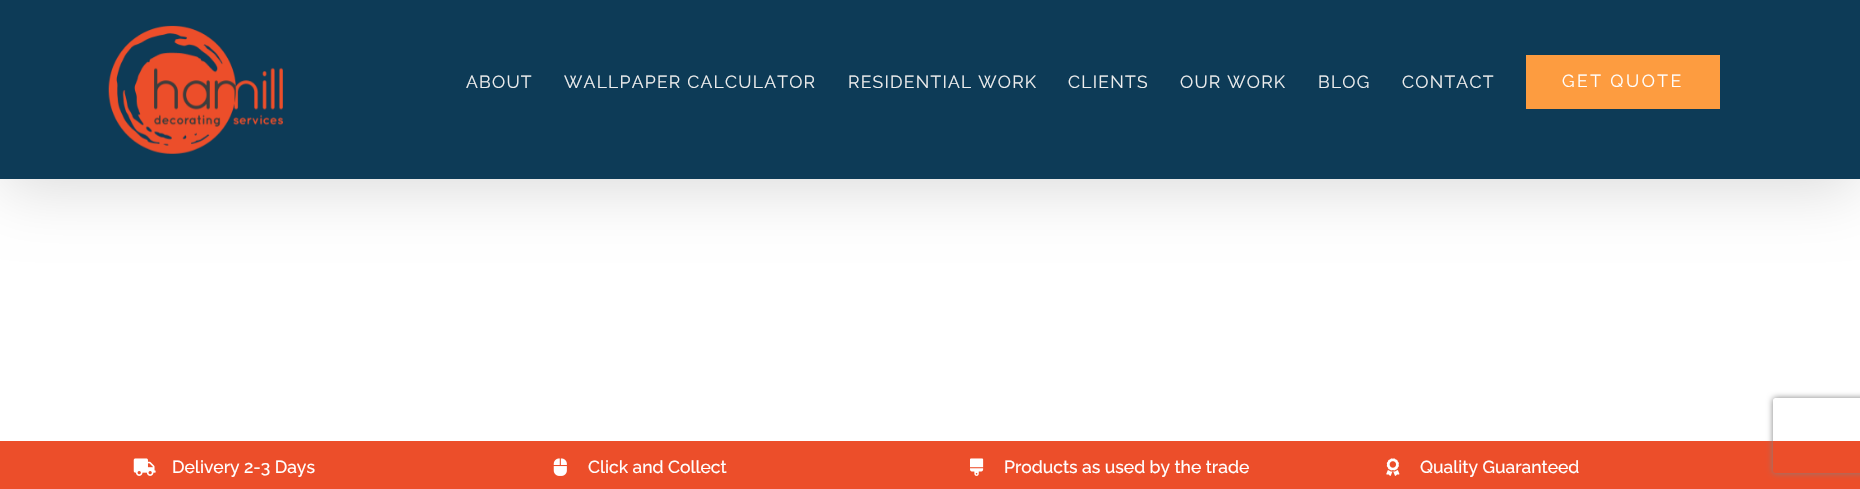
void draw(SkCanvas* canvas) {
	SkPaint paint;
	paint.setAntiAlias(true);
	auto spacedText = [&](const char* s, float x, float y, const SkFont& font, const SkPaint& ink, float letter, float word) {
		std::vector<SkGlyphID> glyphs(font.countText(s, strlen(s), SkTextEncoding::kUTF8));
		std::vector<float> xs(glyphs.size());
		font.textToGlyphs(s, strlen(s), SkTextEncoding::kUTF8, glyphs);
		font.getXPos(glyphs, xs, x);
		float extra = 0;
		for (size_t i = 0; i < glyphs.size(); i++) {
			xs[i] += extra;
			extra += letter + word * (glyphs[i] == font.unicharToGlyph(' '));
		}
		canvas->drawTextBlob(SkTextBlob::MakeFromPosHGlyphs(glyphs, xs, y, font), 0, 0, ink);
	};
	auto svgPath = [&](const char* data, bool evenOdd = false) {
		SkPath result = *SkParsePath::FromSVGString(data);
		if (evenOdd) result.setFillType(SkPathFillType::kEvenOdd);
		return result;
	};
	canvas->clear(0xffffffff);
	paint.setColor(0x24000000);
	paint.setMaskFilter(SkMaskFilter::MakeBlur(kNormal_SkBlurStyle, 31));
	canvas->drawRect(SkRect::MakeXYWH(3, 15, 1855, 174), paint);
	paint.setMaskFilter(nullptr);
	paint.setColor(0xff0d3b57);
	canvas->drawRect(SkRect::MakeXYWH(0, 0, 1860, 179), paint);
	canvas->drawImageRect(SkImages::DeferredFromEncodedData(SkData::MakeFromFileName("img1.png")), SkRect::MakeXYWH(108, 25, 175, 129), SkSamplingOptions());
	SkFont f1(fontMgr->matchFamilyStyle("Raleway", SkFontStyle::Normal()), 17.5);
	f1.setSubpixel(true);
	paint.setColor(0xffeeeeee);
	spacedText("ABOUT", 466, 88, f1, paint, 1.25, 0);
	spacedText("WALLPAPER CALCULATOR", 564, 88, f1, paint, 1.25, 0);
	spacedText("RESIDENTIAL WORK", 848, 88, f1, paint, 1.25, 0);
	spacedText("CLIENTS", 1068, 88, f1, paint, 1.25, 0);
	spacedText("OUR WORK", 1180, 88, f1, paint, 1.25, 0);
	spacedText("BLOG", 1318, 88, f1, paint, 1.25, 0);
	spacedText("CONTACT", 1402, 88, f1, paint, 1.25, 0);
	paint.setColor(0xfffd9c40);
	canvas->drawRect(SkRect::MakeXYWH(1526, 55, 194, 54), paint);
	paint.setColor(0xffffffff);
	spacedText("GET QUOTE", 1562, 87, f1, paint, 2.5, 0);
	paint.setColor(0xffec4e2a);
	canvas->drawRect(SkRect::MakeXYWH(0, 441, 1860, 48), paint);
	canvas->drawImageRect(SkImages::DeferredFromEncodedData(SkData::MakeFromFileName("img2.png")), SkRect::MakeXYWH(133, 458, 23, 18), SkSamplingOptions());
	SkFont f2(fontMgr->matchFamilyStyle("Raleway", SkFontStyle(500, SkFontStyle::kNormal_Width, SkFontStyle::kUpright_Slant)), 17.5);
	f2.setSubpixel(true);
	paint.setColor(0xffffffff);
	canvas->drawString("Delivery 2-3 Days", 172, 473, f2, paint);
	canvas->drawImageRect(SkImages::DeferredFromEncodedData(SkData::MakeFromFileName("img3.png")), SkRect::MakeXYWH(553, 458, 14, 18), SkSamplingOptions());
	canvas->drawString("Click and Collect", 588, 473, f2, paint);
	canvas->drawImageRect(SkImages::DeferredFromEncodedData(SkData::MakeFromFileName("img4.png")), SkRect::MakeXYWH(970, 458, 14, 18), SkSamplingOptions());
	canvas->drawString("Products as used by the trade", 1004, 473, f2, paint);
	canvas->drawImageRect(SkImages::DeferredFromEncodedData(SkData::MakeFromFileName("img5.png")), SkRect::MakeXYWH(1386, 458, 14, 18), SkSamplingOptions());
	canvas->drawString("Quality Guaranteed", 1420, 473, f2, paint);
	canvas->save();
	canvas->clipPath(svgPath("M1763 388H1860V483H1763ZM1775.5 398H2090.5C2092 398 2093 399 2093 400.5V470.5C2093 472 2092 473 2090.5 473H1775.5C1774 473 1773 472 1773 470.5V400.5C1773 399 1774 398 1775.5 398Z", true), true);
	paint.setColor(0xff808080);
	paint.setMaskFilter(SkMaskFilter::MakeBlur(kNormal_SkBlurStyle, 3));
	canvas->drawRoundRect(SkRect::MakeXYWH(1773, 398, 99, 75), 2.5, 2.5, paint);
	paint.setMaskFilter(nullptr);
	canvas->restore();
}
